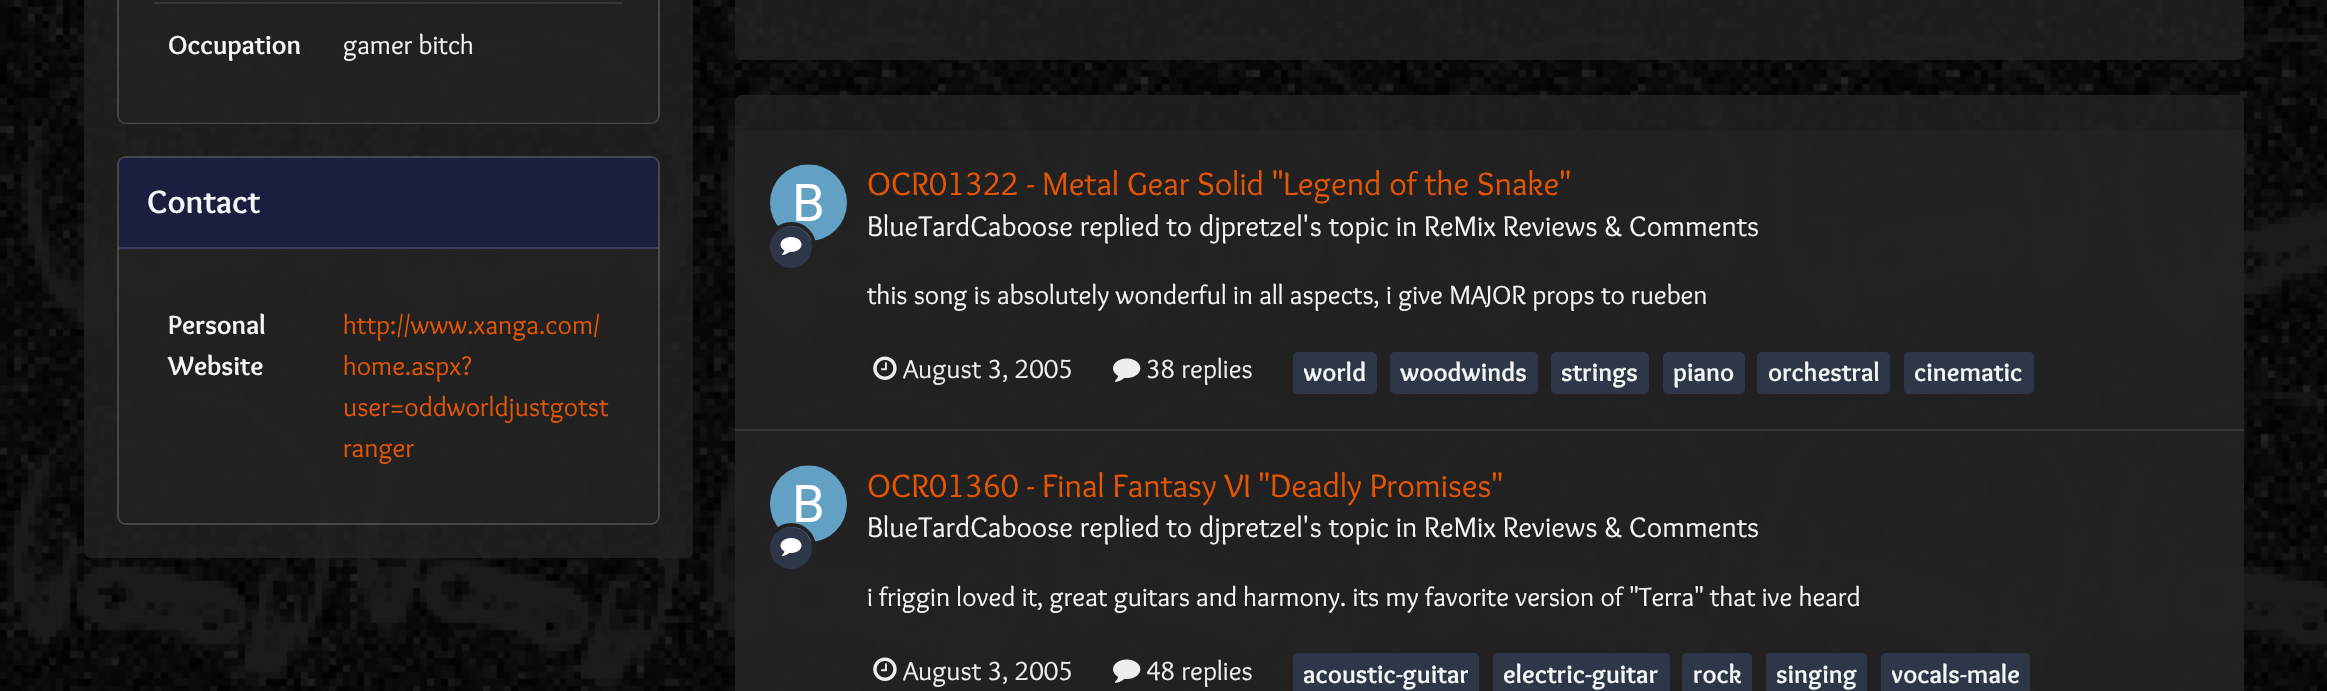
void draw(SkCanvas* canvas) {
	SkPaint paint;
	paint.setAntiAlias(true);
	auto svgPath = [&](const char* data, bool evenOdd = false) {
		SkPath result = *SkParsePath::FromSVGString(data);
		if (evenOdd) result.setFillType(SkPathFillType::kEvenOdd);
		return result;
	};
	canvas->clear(0xffffffff);
	canvas->drawImageRect(SkImages::DeferredFromEncodedData(SkData::MakeFromFileName("img1.png")), SkRect::MakeXYWH(0, 0, 2327, 691), SkSamplingOptions());
	paint.setColor(0xcc222222);
	canvas->drawRoundRect(SkRect::MakeXYWH(84, -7, 609, 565), 7, 7, paint);
	paint.setStroke(true);
	paint.setStrokeWidth(2);
	paint.setColor(0x33eeeeee);
	canvas->drawRoundRect(SkRect::MakeXYWH(118, -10, 541, 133), 8, 8, paint);
	paint.setStroke(false);
	paint.setColor(0xcc222222);
	canvas->drawRoundRect(SkRect::MakeXYWH(119, -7, 539, 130), 7, 7, paint);
	paint.setColor(0xff363636);
	canvas->drawRect(SkRect::MakeXYWH(154, 2, 469, 2), paint);
	SkFont f1(fontMgr->matchFamilyStyle("Overlock", SkFontStyle::Bold()), 27.3);
	f1.setSubpixel(true);
	paint.setColor(0xfff3f6f4);
	canvas->drawString("Occupation", 168, 54, f1, paint);
	SkFont f2(fontMgr->matchFamilyStyle("Overlock", SkFontStyle::Normal()), 27.3);
	f2.setSubpixel(true);
	canvas->drawString("gamer bitch", 343, 54, f2, paint);
	paint.setStroke(true);
	paint.setColor(0x33eeeeee);
	canvas->drawRoundRect(SkRect::MakeXYWH(118, 157, 541, 367), 8, 8, paint);
	paint.setStroke(false);
	paint.setColor(0xcc222222);
	canvas->drawRoundRect(SkRect::MakeXYWH(119, 158, 539, 365), 7, 7, paint);
	paint.setColor(0xa1161b4f);
	canvas->drawPath(svgPath("M126 158H651C655 158 658 161 658 165V249H119V165C119 161 122 158 126 158Z"), paint);
	paint.setColor(0xff3a3d59);
	canvas->drawRect(SkRect::MakeXYWH(119, 247, 539, 2), paint);
	SkFont f3(fontMgr->matchFamilyStyle("Overlock", SkFontStyle::Bold()), 33.6);
	f3.setSubpixel(true);
	paint.setColor(0xfff3f6f4);
	canvas->drawString("Contact", 147, 213, f3, paint);
	canvas->drawString("Personal", 168, 334, f1, paint);
	canvas->drawString("Website", 168, 375, f1, paint);
	paint.setColor(0xffe65502);
	canvas->drawString("http://www.xanga.com/", 343, 334, f2, paint);
	canvas->drawString("home.aspx?", 343, 375, f2, paint);
	canvas->drawString("user=oddworldjustgotst", 343, 416, f2, paint);
	canvas->drawString("ranger", 343, 457, f2, paint);
	paint.setColor(0xcc222222);
	canvas->drawRoundRect(SkRect::MakeXYWH(735, -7, 1509, 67), 7, 7, paint);
	canvas->drawRoundRect(SkRect::MakeXYWH(735, 95, 1509, 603), 7, 7, paint);
	canvas->drawRect(SkRect::MakeXYWH(735, 130, 1509, 299), paint);
	paint.setColor(0xff373737);
	canvas->drawRect(SkRect::MakeXYWH(735, 429, 1509, 2), paint);
	canvas->drawImageRect(SkImages::DeferredFromEncodedData(SkData::MakeFromFileName("img2.png")), SkRect::MakeXYWH(770, 164, 77, 77), SkSamplingOptions());
	SkFont f4(fontMgr->matchFamilyStyle("Overlock", SkFontStyle::Normal()), 33.6);
	f4.setSubpixel(true);
	paint.setColor(0xffe65502);
	canvas->drawString("OCR01322 - Metal Gear Solid \"Legend of the Snake\"", 867, 195, f4, paint);
	SkFont f5(fontMgr->matchFamilyStyle("Overlock", SkFontStyle::Normal()), 29.4);
	f5.setSubpixel(true);
	paint.setColor(0xfff3f6f4);
	canvas->drawString("BlueTardCaboose replied to djpretzel's topic in ReMix Reviews & Comments", 867, 236, f5, paint);
	paint.setStroke(true);
	paint.setStrokeWidth(4);
	paint.setColor(0xff222222);
	canvas->drawCircle(791.5, 246.5, 22.5, paint);
	paint.setStroke(false);
	paint.setColor(0xff2d3748);
	canvas->drawCircle(791, 247, 21, paint);
	canvas->drawImageRect(SkImages::DeferredFromEncodedData(SkData::MakeFromFileName("img3.png")), SkRect::MakeXYWH(780, 237, 22, 18), SkSamplingOptions());
	paint.setColor(0xfff3f6f4);
	canvas->drawString("this song is absolutely wonderful in all aspects, i give MAJOR props to rueben", 867, 304, f2, paint);
	canvas->drawImageRect(SkImages::DeferredFromEncodedData(SkData::MakeFromFileName("img4.png")), SkRect::MakeXYWH(873, 356, 24, 24), SkSamplingOptions());
	paint.setColor(0xffeeeeee);
	canvas->drawString("August 3, 2005", 903, 378, f2, paint);
	canvas->drawImageRect(SkImages::DeferredFromEncodedData(SkData::MakeFromFileName("img5.png")), SkRect::MakeXYWH(1113, 358, 28, 24), SkSamplingOptions());
	canvas->drawString("38 replies", 1146, 378, f2, paint);
	paint.setColor(0xff2d3748);
	canvas->drawRoundRect(SkRect::MakeXYWH(1293, 352, 84, 42), 5, 5, paint);
	canvas->save();
	canvas->clipRect(SkRect::MakeXYWH(1304, 355, 63, 35));
	SkFont f6(fontMgr->matchFamilyStyle("Overlock", SkFontStyle::Bold()), 26.25);
	f6.setSubpixel(true);
	paint.setColor(0xfff3f6f4);
	canvas->drawString("world", 1303, 381, f6, paint);
	canvas->restore();
	paint.setColor(0xff2d3748);
	canvas->drawRoundRect(SkRect::MakeXYWH(1390, 352, 148, 42), 5, 5, paint);
	paint.setColor(0xfff3f6f4);
	canvas->drawString("woodwinds", 1400, 381, f6, paint);
	paint.setColor(0xff2d3748);
	canvas->drawRoundRect(SkRect::MakeXYWH(1551, 352, 98, 42), 5, 5, paint);
	paint.setColor(0xfff3f6f4);
	canvas->drawString("strings", 1561, 381, f6, paint);
	paint.setColor(0xff2d3748);
	canvas->drawRoundRect(SkRect::MakeXYWH(1663, 352, 82, 42), 5, 5, paint);
	paint.setColor(0xfff3f6f4);
	canvas->drawString("piano", 1673, 381, f6, paint);
	paint.setColor(0xff2d3748);
	canvas->drawRoundRect(SkRect::MakeXYWH(1757, 352, 133, 42), 5, 5, paint);
	paint.setColor(0xfff3f6f4);
	canvas->drawString("orchestral", 1768, 381, f6, paint);
	paint.setColor(0xff2d3748);
	canvas->drawRoundRect(SkRect::MakeXYWH(1904, 352, 130, 42), 5, 5, paint);
	paint.setColor(0xfff3f6f4);
	canvas->drawString("cinematic", 1914, 381, f6, paint);
	paint.setColor(0xcc222222);
	canvas->drawRect(SkRect::MakeXYWH(735, 431, 1509, 260), paint);
	canvas->drawImageRect(SkImages::DeferredFromEncodedData(SkData::MakeFromFileName("img6.png")), SkRect::MakeXYWH(770, 465, 77, 77), SkSamplingOptions());
	paint.setColor(0xffe65502);
	canvas->drawString("OCR01360 - Final Fantasy VI \"Deadly Promises\"", 867, 497, f4, paint);
	paint.setColor(0xfff3f6f4);
	canvas->drawString("BlueTardCaboose replied to djpretzel's topic in ReMix Reviews & Comments", 867, 537, f5, paint);
	paint.setStroke(true);
	paint.setColor(0xff222222);
	canvas->drawCircle(791.5, 547.5, 22.5, paint);
	paint.setStroke(false);
	paint.setColor(0xff2d3748);
	canvas->drawCircle(791, 548, 21, paint);
	canvas->drawImageRect(SkImages::DeferredFromEncodedData(SkData::MakeFromFileName("img7.png")), SkRect::MakeXYWH(780, 538, 22, 18), SkSamplingOptions());
	paint.setColor(0xfff3f6f4);
	canvas->drawString("i friggin loved it, great guitars and harmony. its my favorite version of \"Terra\" that ive heard", 867, 606, f2, paint);
	canvas->drawImageRect(SkImages::DeferredFromEncodedData(SkData::MakeFromFileName("img8.png")), SkRect::MakeXYWH(873, 657, 24, 24), SkSamplingOptions());
	paint.setColor(0xffeeeeee);
	canvas->drawString("August 3, 2005", 903, 680, f2, paint);
	canvas->drawImageRect(SkImages::DeferredFromEncodedData(SkData::MakeFromFileName("img9.png")), SkRect::MakeXYWH(1113, 659, 28, 24), SkSamplingOptions());
	canvas->drawString("48 replies", 1146, 680, f2, paint);
	paint.setColor(0xff2d3748);
	canvas->drawRoundRect(SkRect::MakeXYWH(1293, 653, 186, 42), 5, 5, paint);
	canvas->save();
	canvas->clipRect(SkRect::MakeXYWH(1304, 656, 164, 35));
	paint.setColor(0xfff3f6f4);
	canvas->drawString("acoustic-guitar", 1303, 683, f6, paint);
	canvas->restore();
	paint.setColor(0xff2d3748);
	canvas->drawRoundRect(SkRect::MakeXYWH(1493, 653, 177, 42), 5, 5, paint);
	paint.setColor(0xfff3f6f4);
	canvas->drawString("electric-guitar", 1503, 683, f6, paint);
	paint.setColor(0xff2d3748);
	canvas->drawRoundRect(SkRect::MakeXYWH(1682, 653, 70, 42), 5, 5, paint);
	paint.setColor(0xfff3f6f4);
	canvas->drawString("rock", 1693, 683, f6, paint);
	paint.setColor(0xff2d3748);
	canvas->drawRoundRect(SkRect::MakeXYWH(1766, 653, 101, 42), 5, 5, paint);
	paint.setColor(0xfff3f6f4);
	canvas->drawString("singing", 1776, 683, f6, paint);
	paint.setColor(0xff2d3748);
	canvas->drawRoundRect(SkRect::MakeXYWH(1881, 653, 149, 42), 5, 5, paint);
	canvas->save();
	canvas->clipRect(SkRect::MakeXYWH(1892, 656, 128, 35));
	paint.setColor(0xfff3f6f4);
	canvas->drawString("vocals-male", 1891, 683, f6, paint);
	canvas->restore();
}
